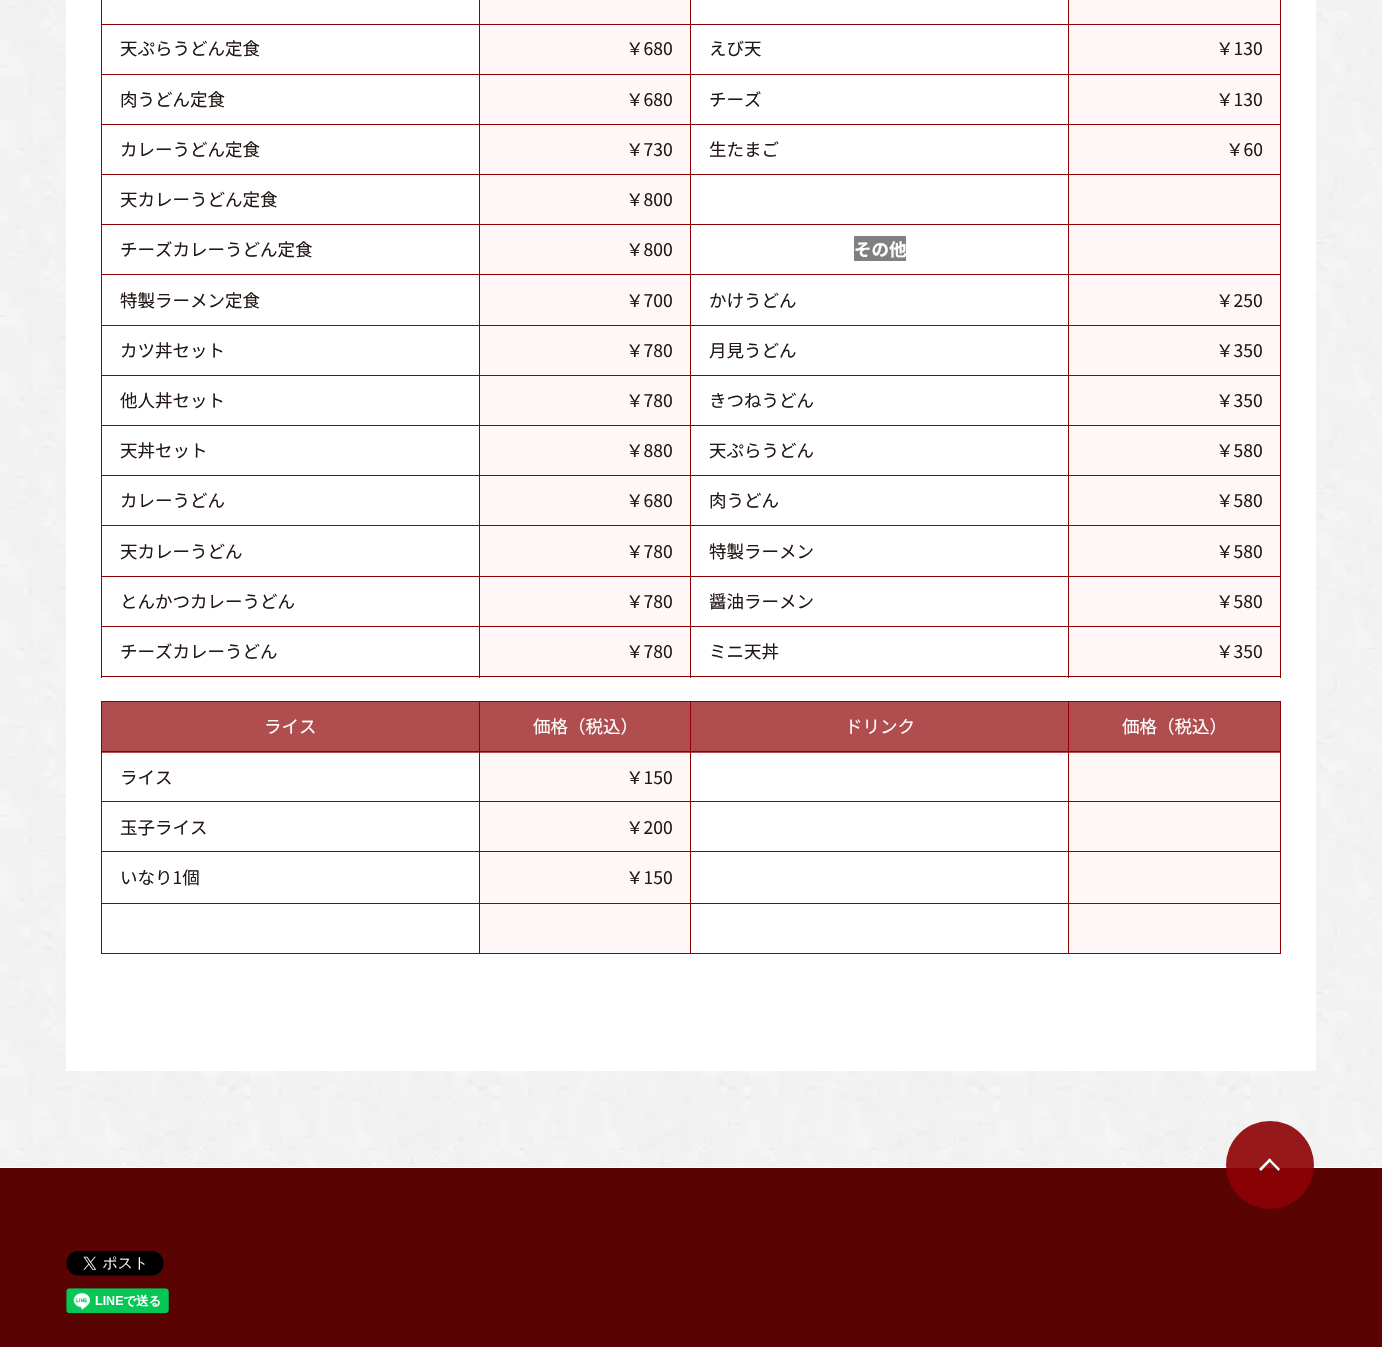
void draw(SkCanvas* canvas) {
	SkPaint paint;
	paint.setAntiAlias(true);
	auto svgPath = [&](const char* data, bool evenOdd = false) {
		SkPath result = *SkParsePath::FromSVGString(data);
		if (evenOdd) result.setFillType(SkPathFillType::kEvenOdd);
		return result;
	};
	canvas->clear(0xffffffff);
	canvas->drawImageRect(SkImages::DeferredFromEncodedData(SkData::MakeFromFileName("img1.png")), SkRect::MakeXYWH(0, 0, 1382, 1167), SkSamplingOptions());
	paint.setColor(0xffffffff);
	canvas->drawRect(SkRect::MakeXYWH(66, 0, 1250, 1071), paint);
	paint.setColor(0xfffff7f7);
	canvas->drawRect(SkRect::MakeXYWH(480, 0, 210, 24), paint);
	paint.setColor(0xff8d0003);
	canvas->drawRect(SkRect::MakeXYWH(1068, 24, 213, 1), paint);
	canvas->drawRect(SkRect::MakeXYWH(1068, 74, 213, 1), paint);
	canvas->drawRect(SkRect::MakeXYWH(1068, 124, 213, 1), paint);
	canvas->drawRect(SkRect::MakeXYWH(1068, 174, 213, 1), paint);
	canvas->drawRect(SkRect::MakeXYWH(1068, 224, 213, 1), paint);
	canvas->drawRect(SkRect::MakeXYWH(1068, 274, 213, 1), paint);
	canvas->drawRect(SkRect::MakeXYWH(1068, 325, 213, 1), paint);
	canvas->drawRect(SkRect::MakeXYWH(1068, 375, 213, 1), paint);
	canvas->drawRect(SkRect::MakeXYWH(1068, 425, 213, 1), paint);
	canvas->drawRect(SkRect::MakeXYWH(1068, 475, 213, 1), paint);
	canvas->drawRect(SkRect::MakeXYWH(1068, 525, 213, 1), paint);
	canvas->drawRect(SkRect::MakeXYWH(1068, 576, 213, 1), paint);
	canvas->drawRect(SkRect::MakeXYWH(1068, 626, 213, 1), paint);
	canvas->drawRect(SkRect::MakeXYWH(1280, 626, 1, 52), paint);
	canvas->drawRect(SkRect::MakeXYWH(1068, 676, 213, 1), paint);
	canvas->drawRect(SkRect::MakeXYWH(1068, 626, 1, 52), paint);
	canvas->drawRect(SkRect::MakeXYWH(690, 626, 379, 1), paint);
	canvas->drawRect(SkRect::MakeXYWH(1068, 576, 1, 52), paint);
	canvas->drawRect(SkRect::MakeXYWH(690, 576, 379, 1), paint);
	canvas->drawRect(SkRect::MakeXYWH(1068, 525, 1, 53), paint);
	canvas->drawRect(SkRect::MakeXYWH(690, 525, 379, 1), paint);
	canvas->drawRect(SkRect::MakeXYWH(1068, 475, 1, 51), paint);
	canvas->drawRect(SkRect::MakeXYWH(690, 475, 379, 1), paint);
	canvas->drawRect(SkRect::MakeXYWH(1068, 425, 1, 51), paint);
	canvas->drawRect(SkRect::MakeXYWH(690, 425, 379, 1), paint);
	canvas->drawRect(SkRect::MakeXYWH(1068, 375, 1, 51), paint);
	canvas->drawRect(SkRect::MakeXYWH(690, 375, 379, 1), paint);
	canvas->drawRect(SkRect::MakeXYWH(1068, 325, 1, 51), paint);
	canvas->drawRect(SkRect::MakeXYWH(690, 325, 379, 1), paint);
	canvas->drawRect(SkRect::MakeXYWH(1068, 274, 1, 52), paint);
	canvas->drawRect(SkRect::MakeXYWH(690, 274, 379, 1), paint);
	canvas->drawRect(SkRect::MakeXYWH(1068, 224, 1, 51), paint);
	canvas->drawRect(SkRect::MakeXYWH(690, 224, 379, 1), paint);
	canvas->drawRect(SkRect::MakeXYWH(1068, 174, 1, 51), paint);
	canvas->drawRect(SkRect::MakeXYWH(690, 174, 379, 1), paint);
	canvas->drawRect(SkRect::MakeXYWH(1068, 124, 1, 51), paint);
	canvas->drawRect(SkRect::MakeXYWH(690, 124, 379, 1), paint);
	canvas->drawRect(SkRect::MakeXYWH(1068, 74, 1, 51), paint);
	canvas->drawRect(SkRect::MakeXYWH(690, 74, 379, 1), paint);
	canvas->drawRect(SkRect::MakeXYWH(1068, 24, 1, 51), paint);
	canvas->drawRect(SkRect::MakeXYWH(690, 24, 379, 1), paint);
	canvas->drawRect(SkRect::MakeXYWH(690, 676, 379, 1), paint);
	canvas->drawRect(SkRect::MakeXYWH(690, 626, 1, 52), paint);
	canvas->drawRect(SkRect::MakeXYWH(479, 626, 212, 1), paint);
	canvas->drawRect(SkRect::MakeXYWH(690, 576, 1, 52), paint);
	canvas->drawRect(SkRect::MakeXYWH(479, 576, 212, 1), paint);
	canvas->drawRect(SkRect::MakeXYWH(690, 525, 1, 53), paint);
	canvas->drawRect(SkRect::MakeXYWH(479, 525, 212, 1), paint);
	canvas->drawRect(SkRect::MakeXYWH(690, 475, 1, 51), paint);
	canvas->drawRect(SkRect::MakeXYWH(479, 475, 212, 1), paint);
	canvas->drawRect(SkRect::MakeXYWH(690, 425, 1, 51), paint);
	canvas->drawRect(SkRect::MakeXYWH(479, 425, 212, 1), paint);
	canvas->drawRect(SkRect::MakeXYWH(690, 375, 1, 51), paint);
	canvas->drawRect(SkRect::MakeXYWH(479, 375, 212, 1), paint);
	canvas->drawRect(SkRect::MakeXYWH(690, 325, 1, 51), paint);
	canvas->drawRect(SkRect::MakeXYWH(479, 325, 212, 1), paint);
	canvas->drawRect(SkRect::MakeXYWH(690, 274, 1, 52), paint);
	canvas->drawRect(SkRect::MakeXYWH(479, 274, 212, 1), paint);
	canvas->drawRect(SkRect::MakeXYWH(690, 224, 1, 51), paint);
	canvas->drawRect(SkRect::MakeXYWH(479, 224, 212, 1), paint);
	canvas->drawRect(SkRect::MakeXYWH(690, 174, 1, 51), paint);
	canvas->drawRect(SkRect::MakeXYWH(479, 174, 212, 1), paint);
	canvas->drawRect(SkRect::MakeXYWH(690, 124, 1, 51), paint);
	canvas->drawRect(SkRect::MakeXYWH(479, 124, 212, 1), paint);
	canvas->drawRect(SkRect::MakeXYWH(690, 74, 1, 51), paint);
	canvas->drawRect(SkRect::MakeXYWH(479, 74, 212, 1), paint);
	canvas->drawRect(SkRect::MakeXYWH(690, 24, 1, 51), paint);
	canvas->drawRect(SkRect::MakeXYWH(479, 24, 212, 1), paint);
	canvas->drawRect(SkRect::MakeXYWH(479, 676, 212, 1), paint);
	canvas->drawRect(SkRect::MakeXYWH(479, 626, 1, 52), paint);
	canvas->drawRect(SkRect::MakeXYWH(101, 626, 379, 1), paint);
	canvas->drawRect(SkRect::MakeXYWH(479, 576, 1, 52), paint);
	canvas->drawRect(SkRect::MakeXYWH(101, 576, 379, 1), paint);
	canvas->drawRect(SkRect::MakeXYWH(479, 525, 1, 53), paint);
	canvas->drawRect(SkRect::MakeXYWH(101, 525, 379, 1), paint);
	canvas->drawRect(SkRect::MakeXYWH(479, 475, 1, 51), paint);
	canvas->drawRect(SkRect::MakeXYWH(101, 475, 379, 1), paint);
	canvas->drawRect(SkRect::MakeXYWH(479, 425, 1, 51), paint);
	canvas->drawRect(SkRect::MakeXYWH(101, 425, 379, 1), paint);
	canvas->drawRect(SkRect::MakeXYWH(479, 375, 1, 51), paint);
	canvas->drawRect(SkRect::MakeXYWH(101, 375, 379, 1), paint);
	canvas->drawRect(SkRect::MakeXYWH(479, 325, 1, 51), paint);
	canvas->drawRect(SkRect::MakeXYWH(101, 325, 379, 1), paint);
	canvas->drawRect(SkRect::MakeXYWH(479, 274, 1, 52), paint);
	canvas->drawRect(SkRect::MakeXYWH(101, 274, 379, 1), paint);
	canvas->drawRect(SkRect::MakeXYWH(479, 224, 1, 51), paint);
	canvas->drawRect(SkRect::MakeXYWH(101, 224, 379, 1), paint);
	canvas->drawRect(SkRect::MakeXYWH(479, 174, 1, 51), paint);
	canvas->drawRect(SkRect::MakeXYWH(101, 174, 379, 1), paint);
	canvas->drawRect(SkRect::MakeXYWH(479, 124, 1, 51), paint);
	canvas->drawRect(SkRect::MakeXYWH(101, 124, 379, 1), paint);
	canvas->drawRect(SkRect::MakeXYWH(479, 74, 1, 51), paint);
	canvas->drawRect(SkRect::MakeXYWH(101, 74, 379, 1), paint);
	canvas->drawRect(SkRect::MakeXYWH(479, 24, 1, 51), paint);
	canvas->drawRect(SkRect::MakeXYWH(101, 24, 379, 1), paint);
	canvas->drawRect(SkRect::MakeXYWH(479, 0, 1, 25), paint);
	canvas->drawRect(SkRect::MakeXYWH(690, 0, 1, 25), paint);
	paint.setColor(0xfffff7f7);
	canvas->drawRect(SkRect::MakeXYWH(1069, 0, 211, 24), paint);
	paint.setColor(0xff8d0003);
	canvas->drawRect(SkRect::MakeXYWH(1068, 0, 1, 25), paint);
	canvas->drawRect(SkRect::MakeXYWH(101, 676, 379, 1), paint);
	canvas->drawRect(SkRect::MakeXYWH(101, 626, 1, 52), paint);
	canvas->drawRect(SkRect::MakeXYWH(101, 576, 1, 52), paint);
	canvas->drawRect(SkRect::MakeXYWH(101, 525, 1, 53), paint);
	canvas->drawRect(SkRect::MakeXYWH(101, 475, 1, 51), paint);
	canvas->drawRect(SkRect::MakeXYWH(101, 425, 1, 51), paint);
	canvas->drawRect(SkRect::MakeXYWH(101, 375, 1, 51), paint);
	canvas->drawRect(SkRect::MakeXYWH(101, 325, 1, 51), paint);
	canvas->drawRect(SkRect::MakeXYWH(101, 274, 1, 52), paint);
	canvas->drawRect(SkRect::MakeXYWH(101, 224, 1, 51), paint);
	canvas->drawRect(SkRect::MakeXYWH(101, 174, 1, 51), paint);
	canvas->drawRect(SkRect::MakeXYWH(101, 124, 1, 51), paint);
	canvas->drawRect(SkRect::MakeXYWH(101, 74, 1, 51), paint);
	canvas->drawRect(SkRect::MakeXYWH(101, 0, 1, 75), paint);
	SkFont f1(fontMgr->matchFamilyStyle("Noto Sans JP", SkFontStyle::Normal()), 17.5);
	f1.setSubpixel(true);
	paint.setColor(0xff231816);
	canvas->drawString("天ぷらうどん定食", 120, 55, f1, paint);
	paint.setColor(0xfffff7f7);
	canvas->drawRect(SkRect::MakeXYWH(480, 25, 210, 49), paint);
	paint.setColor(0xff231816);
	canvas->drawString("￥680", 626, 55, f1, paint);
	canvas->drawString("えび天", 709, 55, f1, paint);
	paint.setColor(0xfffff7f7);
	canvas->drawRect(SkRect::MakeXYWH(1069, 25, 211, 49), paint);
	paint.setColor(0xff8d0003);
	canvas->drawRect(SkRect::MakeXYWH(1280, 576, 1, 52), paint);
	canvas->drawRect(SkRect::MakeXYWH(1280, 525, 1, 53), paint);
	canvas->drawRect(SkRect::MakeXYWH(1280, 475, 1, 51), paint);
	canvas->drawRect(SkRect::MakeXYWH(1280, 425, 1, 51), paint);
	canvas->drawRect(SkRect::MakeXYWH(1280, 375, 1, 51), paint);
	canvas->drawRect(SkRect::MakeXYWH(1280, 325, 1, 51), paint);
	canvas->drawRect(SkRect::MakeXYWH(1280, 274, 1, 52), paint);
	canvas->drawRect(SkRect::MakeXYWH(1280, 224, 1, 51), paint);
	canvas->drawRect(SkRect::MakeXYWH(1280, 174, 1, 51), paint);
	canvas->drawRect(SkRect::MakeXYWH(1280, 124, 1, 51), paint);
	canvas->drawRect(SkRect::MakeXYWH(1280, 74, 1, 51), paint);
	canvas->drawRect(SkRect::MakeXYWH(1280, 0, 1, 75), paint);
	paint.setColor(0xff231816);
	canvas->drawString("￥130", 1216, 55, f1, paint);
	canvas->drawString("肉うどん定食", 120, 106, f1, paint);
	paint.setColor(0xfffff7f7);
	canvas->drawRect(SkRect::MakeXYWH(480, 75, 210, 49), paint);
	paint.setColor(0xff231816);
	canvas->drawString("￥680", 626, 106, f1, paint);
	canvas->drawString("チーズ", 709, 106, f1, paint);
	paint.setColor(0xfffff7f7);
	canvas->drawRect(SkRect::MakeXYWH(1069, 75, 211, 49), paint);
	paint.setColor(0xff231816);
	canvas->drawString("￥130", 1216, 106, f1, paint);
	canvas->drawString("カレーうどん定食", 120, 156, f1, paint);
	paint.setColor(0xfffff7f7);
	canvas->drawRect(SkRect::MakeXYWH(480, 125, 210, 49), paint);
	paint.setColor(0xff231816);
	canvas->drawString("￥730", 626, 156, f1, paint);
	canvas->drawString("生たまご", 709, 156, f1, paint);
	paint.setColor(0xfffff7f7);
	canvas->drawRect(SkRect::MakeXYWH(1069, 125, 211, 49), paint);
	paint.setColor(0xff231816);
	canvas->drawString("￥60", 1226, 156, f1, paint);
	canvas->drawString("天カレーうどん定食", 120, 206, f1, paint);
	paint.setColor(0xfffff7f7);
	canvas->drawRect(SkRect::MakeXYWH(480, 175, 210, 49), paint);
	paint.setColor(0xff231816);
	canvas->drawString("￥800", 626, 206, f1, paint);
	paint.setColor(0xfffff7f7);
	canvas->drawRect(SkRect::MakeXYWH(1069, 175, 211, 49), paint);
	paint.setColor(0xff231816);
	canvas->drawString("チーズカレーうどん定食", 120, 256, f1, paint);
	paint.setColor(0xfffff7f7);
	canvas->drawRect(SkRect::MakeXYWH(480, 225, 210, 49), paint);
	paint.setColor(0xff231816);
	canvas->drawString("￥800", 626, 256, f1, paint);
	paint.setColor(0xff808080);
	canvas->drawRect(SkRect::MakeXYWH(854, 236, 52, 25), paint);
	SkFont f2(fontMgr->matchFamilyStyle("Noto Sans JP", SkFontStyle::Bold()), 17.5);
	f2.setSubpixel(true);
	paint.setColor(0xffffffff);
	canvas->drawString("その他", 854, 256, f2, paint);
	paint.setColor(0xfffff7f7);
	canvas->drawRect(SkRect::MakeXYWH(1069, 225, 211, 49), paint);
	paint.setColor(0xff231816);
	canvas->drawString("特製ラーメン定食", 120, 307, f1, paint);
	paint.setColor(0xfffff7f7);
	canvas->drawRect(SkRect::MakeXYWH(480, 275, 210, 50), paint);
	paint.setColor(0xff231816);
	canvas->drawString("￥700", 626, 307, f1, paint);
	canvas->drawString("かけうどん", 709, 307, f1, paint);
	paint.setColor(0xfffff7f7);
	canvas->drawRect(SkRect::MakeXYWH(1069, 275, 211, 50), paint);
	paint.setColor(0xff231816);
	canvas->drawString("￥250", 1216, 307, f1, paint);
	canvas->drawString("カツ丼セット", 120, 357, f1, paint);
	paint.setColor(0xfffff7f7);
	canvas->drawRect(SkRect::MakeXYWH(480, 326, 210, 49), paint);
	paint.setColor(0xff231816);
	canvas->drawString("￥780", 626, 357, f1, paint);
	canvas->drawString("月見うどん", 709, 357, f1, paint);
	paint.setColor(0xfffff7f7);
	canvas->drawRect(SkRect::MakeXYWH(1069, 326, 211, 49), paint);
	paint.setColor(0xff231816);
	canvas->drawString("￥350", 1216, 357, f1, paint);
	canvas->drawString("他人丼セット", 120, 407, f1, paint);
	paint.setColor(0xfffff7f7);
	canvas->drawRect(SkRect::MakeXYWH(480, 376, 210, 49), paint);
	paint.setColor(0xff231816);
	canvas->drawString("￥780", 626, 407, f1, paint);
	canvas->drawString("きつねうどん", 709, 407, f1, paint);
	paint.setColor(0xfffff7f7);
	canvas->drawRect(SkRect::MakeXYWH(1069, 376, 211, 49), paint);
	paint.setColor(0xff231816);
	canvas->drawString("￥350", 1216, 407, f1, paint);
	canvas->drawString("天丼セット", 120, 457, f1, paint);
	paint.setColor(0xfffff7f7);
	canvas->drawRect(SkRect::MakeXYWH(480, 426, 210, 49), paint);
	paint.setColor(0xff231816);
	canvas->drawString("￥880", 626, 457, f1, paint);
	canvas->drawString("天ぷらうどん", 709, 457, f1, paint);
	paint.setColor(0xfffff7f7);
	canvas->drawRect(SkRect::MakeXYWH(1069, 426, 211, 49), paint);
	paint.setColor(0xff231816);
	canvas->drawString("￥580", 1216, 457, f1, paint);
	canvas->drawString("カレーうどん", 120, 507, f1, paint);
	paint.setColor(0xfffff7f7);
	canvas->drawRect(SkRect::MakeXYWH(480, 476, 210, 49), paint);
	paint.setColor(0xff231816);
	canvas->drawString("￥680", 626, 507, f1, paint);
	canvas->drawString("肉うどん", 709, 507, f1, paint);
	paint.setColor(0xfffff7f7);
	canvas->drawRect(SkRect::MakeXYWH(1069, 476, 211, 49), paint);
	paint.setColor(0xff231816);
	canvas->drawString("￥580", 1216, 507, f1, paint);
	canvas->drawString("天カレーうどん", 120, 558, f1, paint);
	paint.setColor(0xfffff7f7);
	canvas->drawRect(SkRect::MakeXYWH(480, 526, 210, 50), paint);
	paint.setColor(0xff231816);
	canvas->drawString("￥780", 626, 558, f1, paint);
	canvas->drawString("特製ラーメン", 709, 558, f1, paint);
	paint.setColor(0xfffff7f7);
	canvas->drawRect(SkRect::MakeXYWH(1069, 526, 211, 50), paint);
	paint.setColor(0xff231816);
	canvas->drawString("￥580", 1216, 558, f1, paint);
	canvas->drawString("とんかつカレーうどん", 120, 608, f1, paint);
	paint.setColor(0xfffff7f7);
	canvas->drawRect(SkRect::MakeXYWH(480, 577, 210, 49), paint);
	paint.setColor(0xff231816);
	canvas->drawString("￥780", 626, 608, f1, paint);
	canvas->drawString("醤油ラーメン", 709, 608, f1, paint);
	paint.setColor(0xfffff7f7);
	canvas->drawRect(SkRect::MakeXYWH(1069, 577, 211, 49), paint);
	paint.setColor(0xff231816);
	canvas->drawString("￥580", 1216, 608, f1, paint);
	canvas->drawString("チーズカレーうどん", 120, 658, f1, paint);
	paint.setColor(0xfffff7f7);
	canvas->drawRect(SkRect::MakeXYWH(480, 627, 210, 49), paint);
	paint.setColor(0xff231816);
	canvas->drawString("￥780", 626, 658, f1, paint);
	canvas->drawString("ミニ天丼", 709, 658, f1, paint);
	paint.setColor(0xfffff7f7);
	canvas->drawRect(SkRect::MakeXYWH(1069, 627, 211, 49), paint);
	paint.setColor(0xff231816);
	canvas->drawString("￥350", 1216, 658, f1, paint);
	paint.setColor(0xffaf4d4f);
	canvas->drawRect(SkRect::MakeXYWH(102, 702, 377, 51), paint);
	paint.setColor(0xff8d0003);
	canvas->drawRect(SkRect::MakeXYWH(1068, 701, 213, 1), paint);
	paint.setColor(0xffaf4d4f);
	canvas->drawRect(SkRect::MakeXYWH(691, 702, 377, 51), paint);
	canvas->drawRect(SkRect::MakeXYWH(1069, 702, 211, 51), paint);
	paint.setColor(0xff8d0003);
	canvas->drawRect(SkRect::MakeXYWH(1068, 751, 213, 1), paint);
	paint.setColor(0xfffff7f7);
	canvas->drawRect(SkRect::MakeXYWH(1069, 753, 211, 150), paint);
	paint.setColor(0xff8d0003);
	canvas->drawRect(SkRect::MakeXYWH(1068, 801, 213, 1), paint);
	canvas->drawRect(SkRect::MakeXYWH(1068, 851, 213, 1), paint);
	canvas->drawRect(SkRect::MakeXYWH(1068, 903, 213, 1), paint);
	canvas->drawRect(SkRect::MakeXYWH(1280, 903, 1, 51), paint);
	canvas->drawRect(SkRect::MakeXYWH(1068, 953, 213, 1), paint);
	canvas->drawRect(SkRect::MakeXYWH(1068, 903, 1, 51), paint);
	canvas->drawRect(SkRect::MakeXYWH(690, 903, 379, 1), paint);
	canvas->drawRect(SkRect::MakeXYWH(1068, 851, 1, 53), paint);
	canvas->drawRect(SkRect::MakeXYWH(690, 851, 379, 1), paint);
	canvas->drawRect(SkRect::MakeXYWH(1068, 801, 1, 52), paint);
	canvas->drawRect(SkRect::MakeXYWH(690, 801, 379, 1), paint);
	canvas->drawRect(SkRect::MakeXYWH(1068, 751, 1, 52), paint);
	canvas->drawRect(SkRect::MakeXYWH(690, 751, 379, 1), paint);
	canvas->drawRect(SkRect::MakeXYWH(1068, 701, 1, 52), paint);
	canvas->drawRect(SkRect::MakeXYWH(690, 701, 379, 1), paint);
	paint.setColor(0xffaf4d4f);
	canvas->drawRect(SkRect::MakeXYWH(480, 702, 210, 51), paint);
	paint.setColor(0xfffff7f7);
	canvas->drawRect(SkRect::MakeXYWH(480, 753, 210, 150), paint);
	paint.setColor(0xff8d0003);
	canvas->drawRect(SkRect::MakeXYWH(690, 953, 379, 1), paint);
	canvas->drawRect(SkRect::MakeXYWH(690, 903, 1, 51), paint);
	canvas->drawRect(SkRect::MakeXYWH(479, 903, 212, 1), paint);
	canvas->drawRect(SkRect::MakeXYWH(690, 851, 1, 53), paint);
	canvas->drawRect(SkRect::MakeXYWH(479, 851, 212, 1), paint);
	canvas->drawRect(SkRect::MakeXYWH(690, 801, 1, 52), paint);
	canvas->drawRect(SkRect::MakeXYWH(479, 801, 212, 1), paint);
	canvas->drawRect(SkRect::MakeXYWH(690, 751, 1, 52), paint);
	canvas->drawRect(SkRect::MakeXYWH(479, 751, 212, 1), paint);
	canvas->drawRect(SkRect::MakeXYWH(690, 701, 1, 52), paint);
	canvas->drawRect(SkRect::MakeXYWH(479, 701, 212, 1), paint);
	canvas->drawRect(SkRect::MakeXYWH(479, 953, 212, 1), paint);
	canvas->drawRect(SkRect::MakeXYWH(479, 903, 1, 51), paint);
	canvas->drawRect(SkRect::MakeXYWH(101, 903, 379, 1), paint);
	canvas->drawRect(SkRect::MakeXYWH(479, 851, 1, 53), paint);
	canvas->drawRect(SkRect::MakeXYWH(101, 851, 379, 1), paint);
	canvas->drawRect(SkRect::MakeXYWH(479, 801, 1, 52), paint);
	canvas->drawRect(SkRect::MakeXYWH(101, 801, 379, 1), paint);
	canvas->drawRect(SkRect::MakeXYWH(479, 751, 1, 52), paint);
	canvas->drawRect(SkRect::MakeXYWH(101, 751, 379, 1), paint);
	canvas->drawRect(SkRect::MakeXYWH(479, 701, 1, 52), paint);
	canvas->drawRect(SkRect::MakeXYWH(101, 701, 379, 1), paint);
	canvas->drawRect(SkRect::MakeXYWH(101, 953, 379, 1), paint);
	canvas->drawRect(SkRect::MakeXYWH(101, 903, 1, 51), paint);
	canvas->drawRect(SkRect::MakeXYWH(101, 851, 1, 53), paint);
	canvas->drawRect(SkRect::MakeXYWH(101, 801, 1, 52), paint);
	canvas->drawRect(SkRect::MakeXYWH(101, 751, 1, 52), paint);
	canvas->drawRect(SkRect::MakeXYWH(101, 701, 1, 52), paint);
	paint.setColor(0xffffffff);
	canvas->drawString("ライス", 264, 733, f1, paint);
	canvas->drawString("価格（税込）", 533, 733, f1, paint);
	canvas->drawString("ドリンク", 845, 733, f1, paint);
	paint.setColor(0xff8d0003);
	canvas->drawRect(SkRect::MakeXYWH(1280, 851, 1, 53), paint);
	canvas->drawRect(SkRect::MakeXYWH(1280, 801, 1, 52), paint);
	canvas->drawRect(SkRect::MakeXYWH(1280, 751, 1, 52), paint);
	canvas->drawRect(SkRect::MakeXYWH(1280, 701, 1, 52), paint);
	paint.setColor(0xffffffff);
	canvas->drawString("価格（税込）", 1122, 733, f1, paint);
	paint.setColor(0xff231816);
	canvas->drawString("ライス", 120, 784, f1, paint);
	canvas->drawString("￥150", 626, 784, f1, paint);
	canvas->drawString("玉子ライス", 120, 834, f1, paint);
	canvas->drawString("￥200", 626, 834, f1, paint);
	canvas->drawString("いなり1個", 120, 884, f1, paint);
	canvas->drawString("￥150", 626, 884, f1, paint);
	paint.setColor(0xfffff7f7);
	canvas->drawRect(SkRect::MakeXYWH(480, 904, 210, 49), paint);
	canvas->drawRect(SkRect::MakeXYWH(1069, 904, 211, 49), paint);
	paint.setColor(0xff590303);
	canvas->drawRect(SkRect::MakeXYWH(0, 1168, 1382, 179), paint);
	paint.setColor(0xe68d0003);
	canvas->drawCircle(1270, 1165, 44, paint);
	paint.setColor(0xffffffff);
	canvas->drawPath(svgPath("M1269.5 1158.5L1280 1169L1278.5 1171L1268 1160Z"), paint);
	canvas->drawPath(svgPath("M1269.5 1158.5L1271.5 1160L1261 1171L1259 1169Z"), paint);
	canvas->drawImageRect(SkImages::DeferredFromEncodedData(SkData::MakeFromFileName("img2.png")), SkRect::MakeXYWH(66, 1250, 98, 26), SkSamplingOptions());
	canvas->drawImageRect(SkImages::DeferredFromEncodedData(SkData::MakeFromFileName("img3.png")), SkRect::MakeXYWH(66, 1288, 103, 26), SkSamplingOptions());
}
